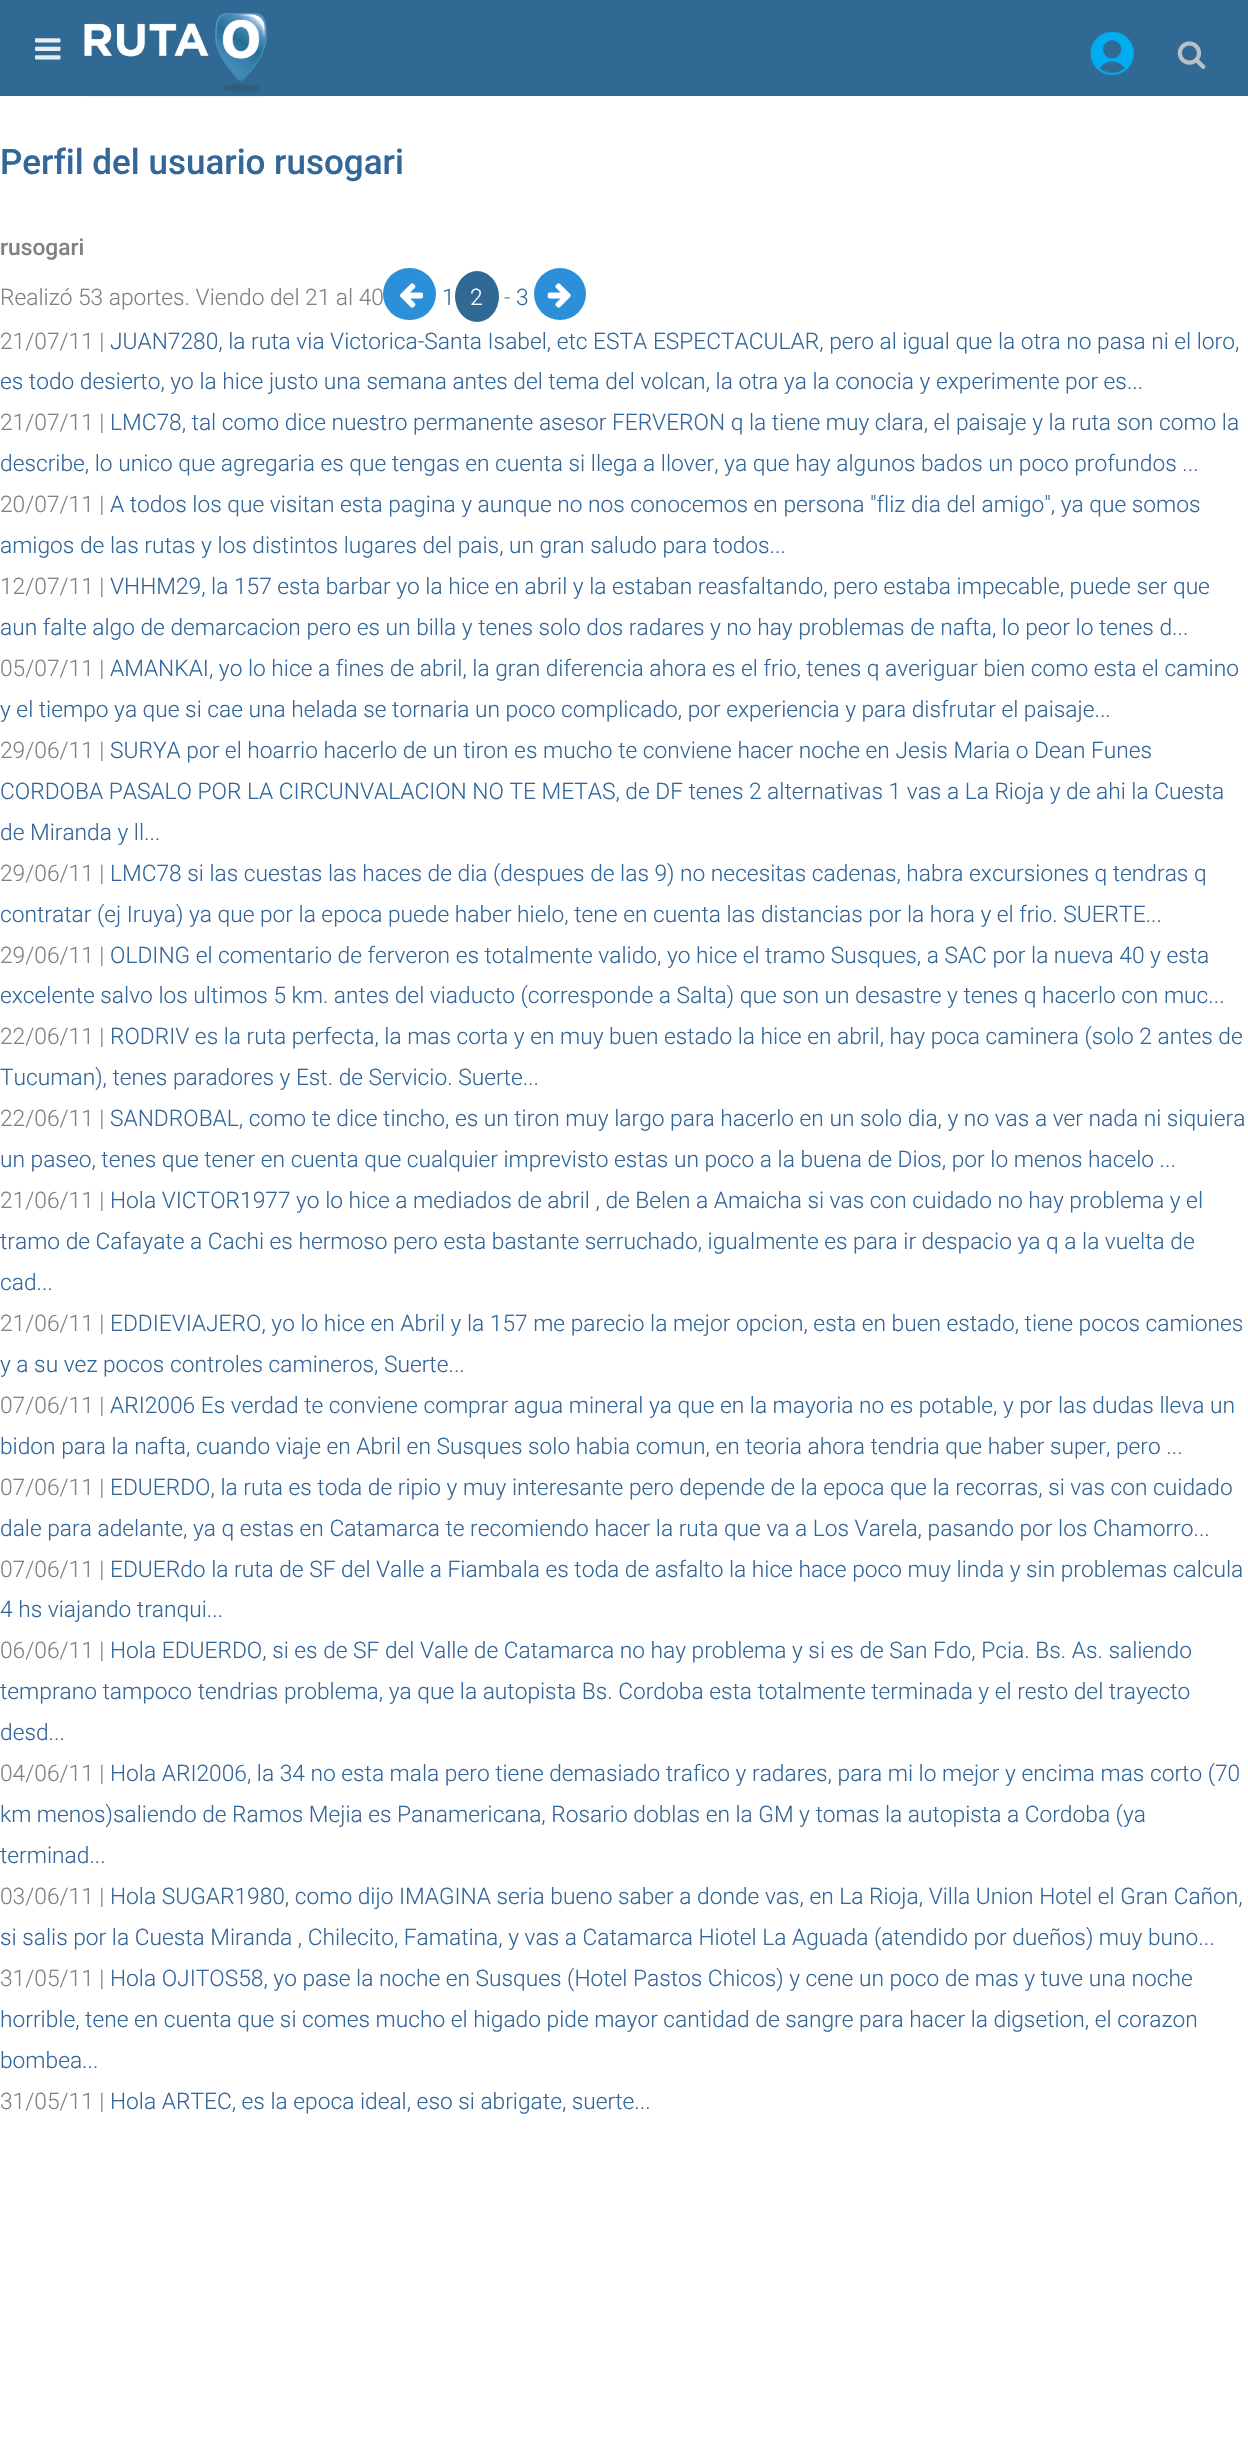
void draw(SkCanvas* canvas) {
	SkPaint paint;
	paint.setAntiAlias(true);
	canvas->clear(0xffffffff);
	paint.setColor(0xff306a94);
	canvas->drawRect(SkRect::MakeXYWH(0, 0, 1248, 96), paint);
	canvas->drawImageRect(SkImages::DeferredFromEncodedData(SkData::MakeFromFileName("img1.png")), SkRect::MakeXYWH(35, 38, 26, 22), SkSamplingOptions());
	canvas->drawImageRect(SkImages::DeferredFromEncodedData(SkData::MakeFromFileName("img2.png")), SkRect::MakeXYWH(84, 13, 183, 84), SkSamplingOptions());
	canvas->drawImageRect(SkImages::DeferredFromEncodedData(SkData::MakeFromFileName("img3.png")), SkRect::MakeXYWH(1090, 31, 44, 44), SkSamplingOptions());
	canvas->drawImageRect(SkImages::DeferredFromEncodedData(SkData::MakeFromFileName("img4.png")), SkRect::MakeXYWH(1177, 41, 29, 28), SkSamplingOptions());
	SkFont f1(fontMgr->matchFamilyStyle("Roboto", SkFontStyle(500, SkFontStyle::kNormal_Width, SkFontStyle::kUpright_Slant)), 35);
	f1.setSubpixel(true);
	paint.setColor(0xff336699);
	canvas->drawString("Perfil del usuario rusogari", 0, 174, f1, paint);
	SkFont f2(fontMgr->matchFamilyStyle("Roboto", SkFontStyle(500, SkFontStyle::kNormal_Width, SkFontStyle::kUpright_Slant)), 22.75);
	f2.setSubpixel(true);
	paint.setColor(0xff818181);
	canvas->drawString("rusogari", 0, 255, f2, paint);
	SkFont f3(fontMgr->matchFamilyStyle("Roboto", SkFontStyle(300, SkFontStyle::kNormal_Width, SkFontStyle::kUpright_Slant)), 22.75);
	f3.setSubpixel(true);
	canvas->drawString("Realizó 53 aportes. Viendo del 21 al 40", 0, 305, f3, paint);
	paint.setColor(0xff2b90d9);
	canvas->drawRoundRect(SkRect::MakeXYWH(383, 268, 53, 52), 26, 26, paint);
	canvas->drawImageRect(SkImages::DeferredFromEncodedData(SkData::MakeFromFileName("img5.png")), SkRect::MakeXYWH(400, 283, 23, 25), SkSamplingOptions());
	paint.setColor(0xff336699);
	canvas->drawString("1", 442, 305, f3, paint);
	paint.setColor(0xff306a94);
	canvas->drawOval(SkRect::MakeXYWH(455, 271, 44, 51), paint);
	paint.setColor(0xffffffff);
	canvas->drawString("2", 470, 305, f3, paint);
	paint.setColor(0xff818181);
	canvas->drawString("-", 504, 305, f3, paint);
	paint.setColor(0xff336699);
	canvas->drawString("3", 516, 305, f3, paint);
	paint.setColor(0xff2b90d9);
	canvas->drawCircle(560, 294, 26, paint);
	canvas->drawImageRect(SkImages::DeferredFromEncodedData(SkData::MakeFromFileName("img6.png")), SkRect::MakeXYWH(547, 283, 24, 25), SkSamplingOptions());
	paint.setColor(0xff818181);
	canvas->drawString("21/07/11 |", 0, 349, f3, paint);
	paint.setColor(0xff336699);
	canvas->drawString("JUAN7280, la ruta via Victorica-Santa Isabel, etc ESTA ESPECTACULAR, pero al igual que la otra no pasa ni el loro,", 110, 349, f3, paint);
	canvas->drawString("es todo desierto, yo la hice justo una semana antes del tema del volcan, la otra ya la conocia y experimente por es...", 0, 389, f3, paint);
	paint.setColor(0xff818181);
	canvas->drawString("21/07/11 |", 0, 430, f3, paint);
	paint.setColor(0xff336699);
	canvas->drawString("LMC78, tal como dice nuestro permanente asesor FERVERON q la tiene muy clara, el paisaje y la ruta son como la", 110, 430, f3, paint);
	canvas->drawString("describe, lo unico que agregaria es que tengas en cuenta si llega a llover, ya que hay algunos bados un poco profundos ...", 0, 471, f3, paint);
	paint.setColor(0xff818181);
	canvas->drawString("20/07/11 |", 0, 512, f3, paint);
	paint.setColor(0xff336699);
	canvas->drawString("A todos los que visitan esta pagina y aunque no nos conocemos en persona \"fliz dia del amigo\", ya que somos", 110, 512, f3, paint);
	canvas->drawString("amigos de las rutas y los distintos lugares del pais, un gran saludo para todos...", 0, 553, f3, paint);
	paint.setColor(0xff818181);
	canvas->drawString("12/07/11 |", 0, 594, f3, paint);
	paint.setColor(0xff336699);
	canvas->drawString("VHHM29, la 157 esta barbar yo la hice en abril y la estaban reasfaltando, pero estaba impecable, puede ser que", 110, 594, f3, paint);
	canvas->drawString("aun falte algo de demarcacion pero es un billa y tenes solo dos radares y no hay problemas de nafta, lo peor lo tenes d...", 0, 635, f3, paint);
	paint.setColor(0xff818181);
	canvas->drawString("05/07/11 |", 0, 676, f3, paint);
	paint.setColor(0xff336699);
	canvas->drawString("AMANKAI, yo lo hice a fines de abril, la gran diferencia ahora es el frio, tenes q averiguar bien como esta el camino", 110, 676, f3, paint);
	canvas->drawString("y el tiempo ya que si cae una helada se tornaria un poco complicado, por experiencia y para disfrutar el paisaje...", 0, 717, f3, paint);
	paint.setColor(0xff818181);
	canvas->drawString("29/06/11 |", 0, 758, f3, paint);
	paint.setColor(0xff336699);
	canvas->drawString("SURYA por el hoarrio hacerlo de un tiron es mucho te conviene hacer noche en Jesis Maria o Dean Funes", 110, 758, f3, paint);
	canvas->drawString("CORDOBA PASALO POR LA CIRCUNVALACION NO TE METAS, de DF tenes 2 alternativas 1 vas a La Rioja y de ahi la Cuesta", 0, 799, f3, paint);
	canvas->drawString("de Miranda y ll...", 0, 840, f3, paint);
	paint.setColor(0xff818181);
	canvas->drawString("29/06/11 |", 0, 881, f3, paint);
	paint.setColor(0xff336699);
	canvas->drawString("LMC78 si las cuestas las haces de dia (despues de las 9) no necesitas cadenas, habra excursiones q tendras q", 110, 881, f3, paint);
	canvas->drawString("contratar (ej Iruya) ya que por la epoca puede haber hielo, tene en cuenta las distancias por la hora y el frio. SUERTE...", 0, 922, f3, paint);
	paint.setColor(0xff818181);
	canvas->drawString("29/06/11 |", 0, 963, f3, paint);
	paint.setColor(0xff336699);
	canvas->drawString("OLDING el comentario de ferveron es totalmente valido, yo hice el tramo Susques, a SAC por la nueva 40 y esta", 110, 963, f3, paint);
	canvas->drawString("excelente salvo los ultimos 5 km. antes del viaducto (corresponde a Salta) que son un desastre y tenes q hacerlo con muc...", 0, 1003, f3, paint);
	paint.setColor(0xff818181);
	canvas->drawString("22/06/11 |", 0, 1044, f3, paint);
	paint.setColor(0xff336699);
	canvas->drawString("RODRIV es la ruta perfecta, la mas corta y en muy buen estado la hice en abril, hay poca caminera (solo 2 antes de", 110, 1044, f3, paint);
	canvas->drawString("Tucuman), tenes paradores y Est. de Servicio. Suerte...", 0, 1085, f3, paint);
	paint.setColor(0xff818181);
	canvas->drawString("22/06/11 |", 0, 1126, f3, paint);
	paint.setColor(0xff336699);
	canvas->drawString("SANDROBAL, como te dice tincho, es un tiron muy largo para hacerlo en un solo dia, y no vas a ver nada ni siquiera", 110, 1126, f3, paint);
	canvas->drawString("un paseo, tenes que tener en cuenta que cualquier imprevisto estas un poco a la buena de Dios, por lo menos hacelo ...", 0, 1167, f3, paint);
	paint.setColor(0xff818181);
	canvas->drawString("21/06/11 |", 0, 1208, f3, paint);
	paint.setColor(0xff336699);
	canvas->drawString("Hola VICTOR1977 yo lo hice a mediados de abril , de Belen a Amaicha si vas con cuidado no hay problema y el", 110, 1208, f3, paint);
	canvas->drawString("tramo de Cafayate a Cachi es hermoso pero esta bastante serruchado, igualmente es para ir despacio ya q a la vuelta de", 0, 1249, f3, paint);
	canvas->drawString("cad...", 0, 1290, f3, paint);
	paint.setColor(0xff818181);
	canvas->drawString("21/06/11 |", 0, 1331, f3, paint);
	paint.setColor(0xff336699);
	canvas->drawString("EDDIEVIAJERO, yo lo hice en Abril y la 157 me parecio la mejor opcion, esta en buen estado, tiene pocos camiones", 110, 1331, f3, paint);
	canvas->drawString("y a su vez pocos controles camineros, Suerte...", 0, 1372, f3, paint);
	paint.setColor(0xff818181);
	canvas->drawString("07/06/11 |", 0, 1413, f3, paint);
	paint.setColor(0xff336699);
	canvas->drawString("ARI2006 Es verdad te conviene comprar agua mineral ya que en la mayoria no es potable, y por las dudas lleva un", 110, 1413, f3, paint);
	canvas->drawString("bidon para la nafta, cuando viaje en Abril en Susques solo habia comun, en teoria ahora tendria que haber super, pero ...", 0, 1454, f3, paint);
	paint.setColor(0xff818181);
	canvas->drawString("07/06/11 |", 0, 1495, f3, paint);
	paint.setColor(0xff336699);
	canvas->drawString("EDUERDO, la ruta es toda de ripio y muy interesante pero depende de la epoca que la recorras, si vas con cuidado", 110, 1495, f3, paint);
	canvas->drawString("dale para adelante, ya q estas en Catamarca te recomiendo hacer la ruta que va a Los Varela, pasando por los Chamorro...", 0, 1536, f3, paint);
	paint.setColor(0xff818181);
	canvas->drawString("07/06/11 |", 0, 1577, f3, paint);
	paint.setColor(0xff336699);
	canvas->drawString("EDUERdo la ruta de SF del Valle a Fiambala es toda de asfalto la hice hace poco muy linda y sin problemas calcula", 110, 1577, f3, paint);
	canvas->drawString("4 hs viajando tranqui...", 0, 1617, f3, paint);
	paint.setColor(0xff818181);
	canvas->drawString("06/06/11 |", 0, 1658, f3, paint);
	paint.setColor(0xff336699);
	canvas->drawString("Hola EDUERDO, si es de SF del Valle de Catamarca no hay problema y si es de San Fdo, Pcia. Bs. As. saliendo", 110, 1658, f3, paint);
	canvas->drawString("temprano tampoco tendrias problema, ya que la autopista Bs. Cordoba esta totalmente terminada y el resto del trayecto", 0, 1699, f3, paint);
	canvas->drawString("desd...", 0, 1740, f3, paint);
	paint.setColor(0xff818181);
	canvas->drawString("04/06/11 |", 0, 1781, f3, paint);
	paint.setColor(0xff336699);
	canvas->drawString("Hola ARI2006, la 34 no esta mala pero tiene demasiado trafico y radares, para mi lo mejor y encima mas corto (70", 110, 1781, f3, paint);
	canvas->drawString("km menos)saliendo de Ramos Mejia es Panamericana, Rosario doblas en la GM y tomas la autopista a Cordoba (ya", 0, 1822, f3, paint);
	canvas->drawString("terminad...", 0, 1863, f3, paint);
	paint.setColor(0xff818181);
	canvas->drawString("03/06/11 |", 0, 1904, f3, paint);
	paint.setColor(0xff336699);
	canvas->drawString("Hola SUGAR1980, como dijo IMAGINA seria bueno saber a donde vas, en La Rioja, Villa Union Hotel el Gran Cañon,", 110, 1904, f3, paint);
	canvas->drawString("si salis por la Cuesta Miranda , Chilecito, Famatina, y vas a Catamarca Hiotel La Aguada (atendido por dueños) muy buno...", 0, 1945, f3, paint);
	paint.setColor(0xff818181);
	canvas->drawString("31/05/11 |", 0, 1986, f3, paint);
	paint.setColor(0xff336699);
	canvas->drawString("Hola OJITOS58, yo pase la noche en Susques (Hotel Pastos Chicos) y cene un poco de mas y tuve una noche", 110, 1986, f3, paint);
	canvas->drawString("horrible, tene en cuenta que si comes mucho el higado pide mayor cantidad de sangre para hacer la digsetion, el corazon", 0, 2027, f3, paint);
	canvas->drawString("bombea...", 0, 2068, f3, paint);
	paint.setColor(0xff818181);
	canvas->drawString("31/05/11 |", 0, 2109, f3, paint);
	paint.setColor(0xff336699);
	canvas->drawString("Hola ARTEC, es la epoca ideal, eso si abrigate, suerte...", 110, 2109, f3, paint);
}
